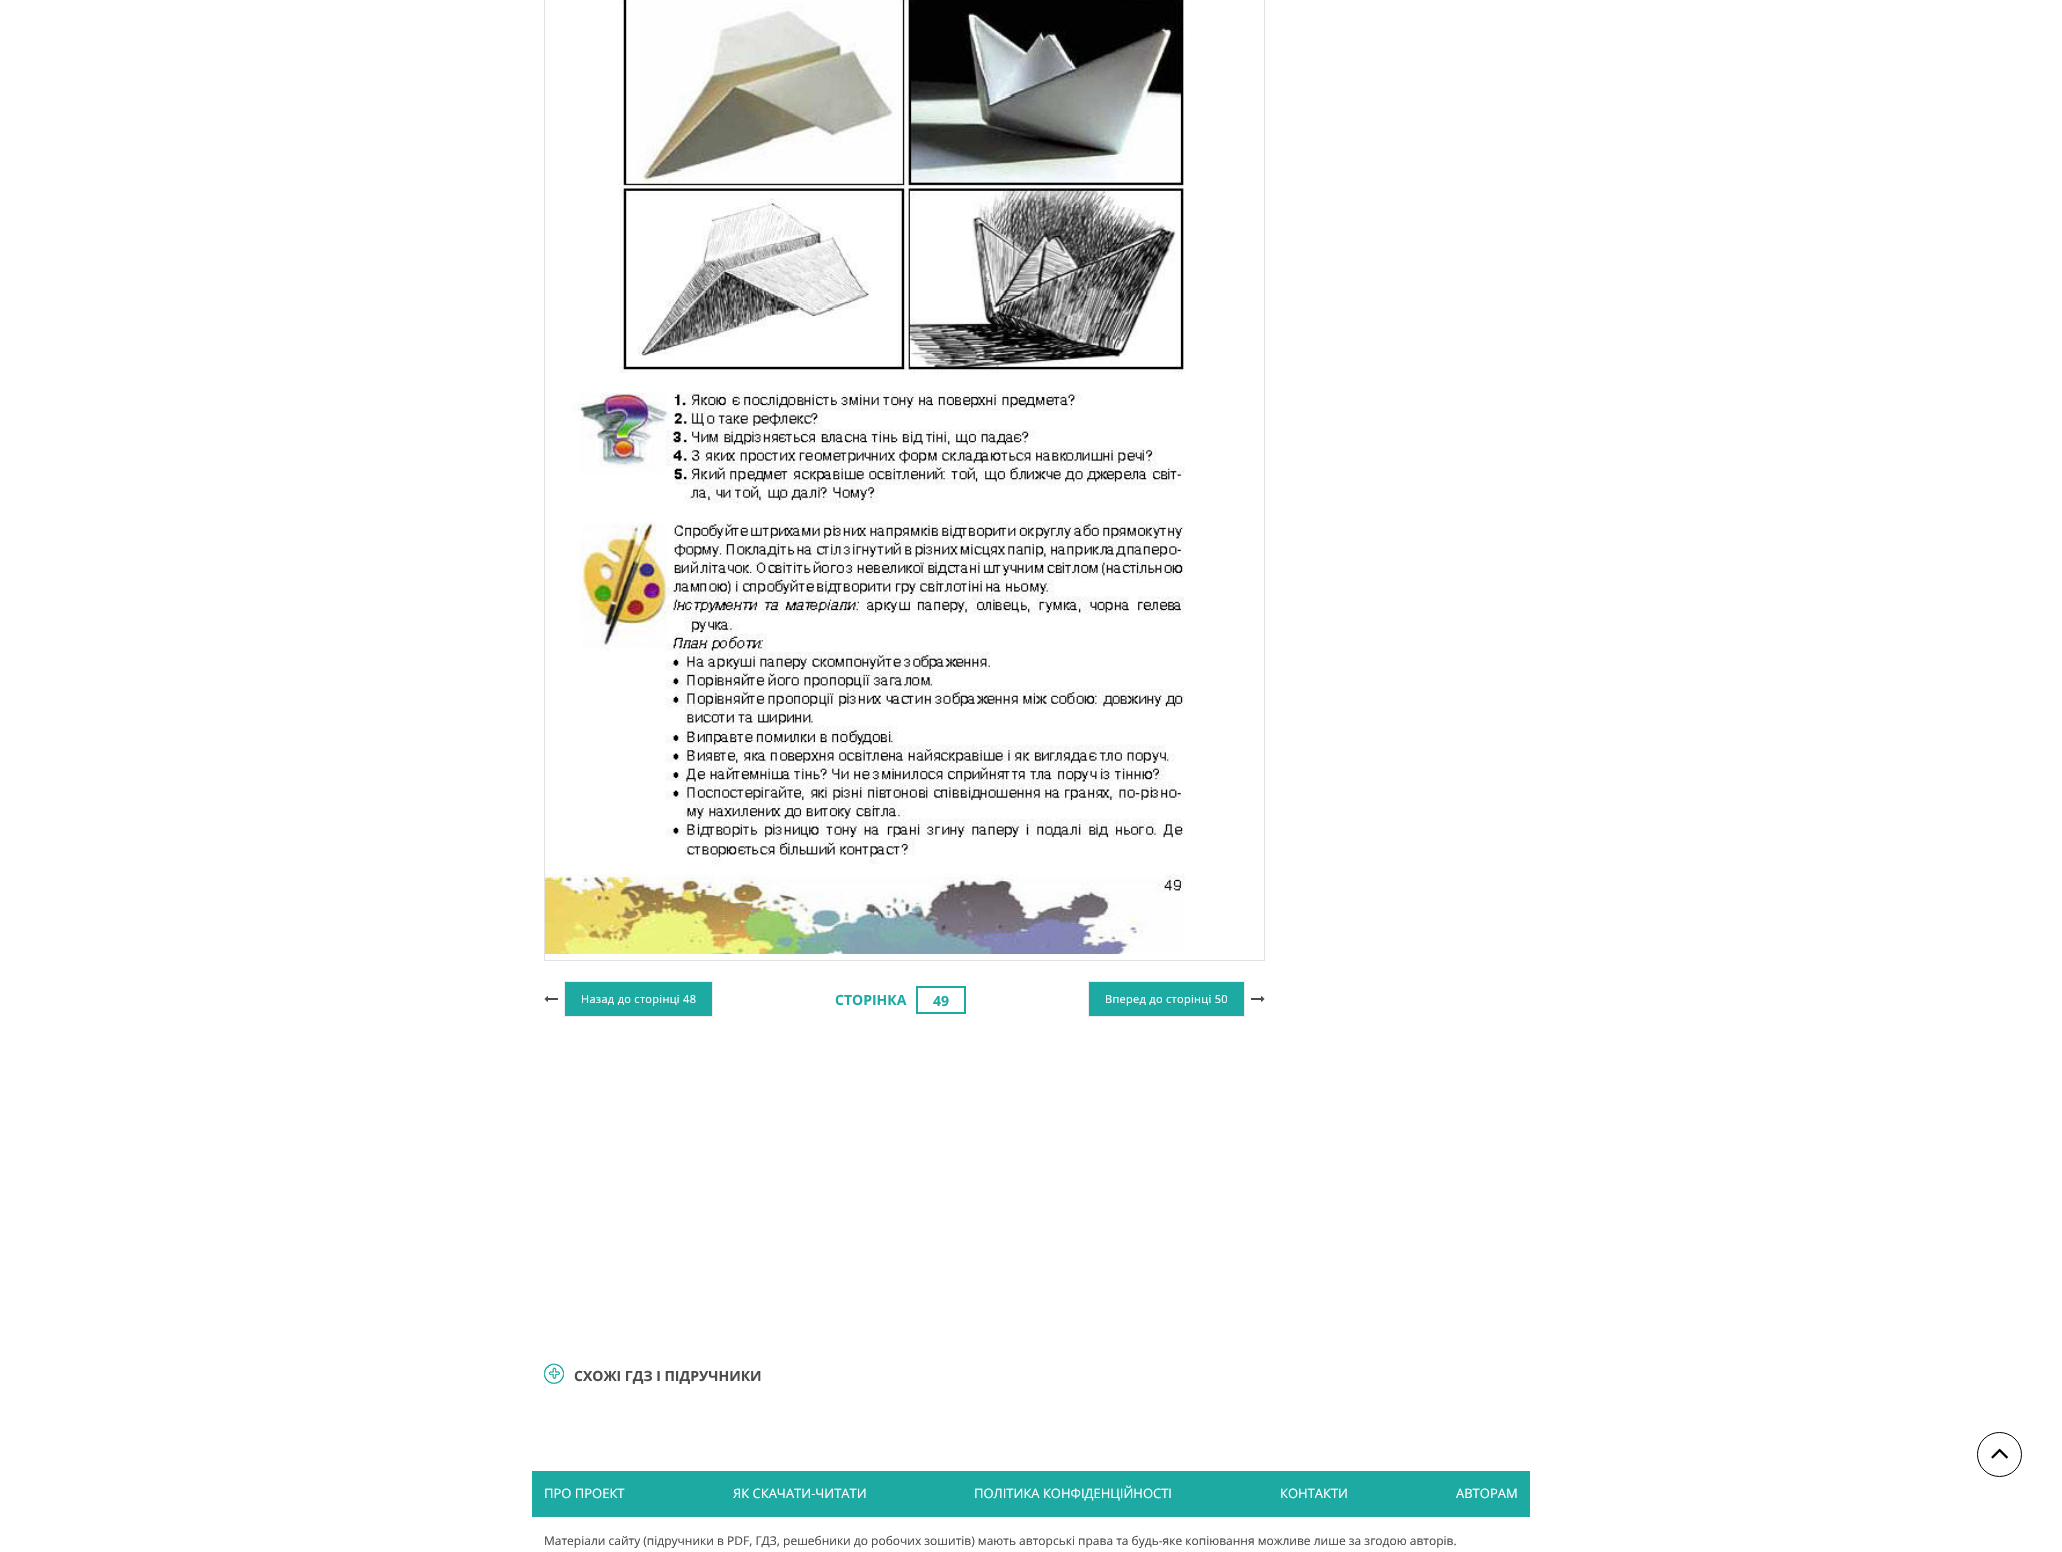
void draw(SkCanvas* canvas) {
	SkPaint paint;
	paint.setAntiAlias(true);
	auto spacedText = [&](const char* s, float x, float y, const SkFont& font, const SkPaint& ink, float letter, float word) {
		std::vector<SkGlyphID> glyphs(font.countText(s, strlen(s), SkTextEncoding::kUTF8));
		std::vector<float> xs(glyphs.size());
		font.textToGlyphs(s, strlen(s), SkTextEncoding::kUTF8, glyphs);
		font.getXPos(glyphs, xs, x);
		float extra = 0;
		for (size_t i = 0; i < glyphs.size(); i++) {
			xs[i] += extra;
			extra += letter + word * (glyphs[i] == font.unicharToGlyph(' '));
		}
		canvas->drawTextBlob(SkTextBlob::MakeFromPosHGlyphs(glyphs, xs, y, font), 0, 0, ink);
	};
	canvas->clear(0xffffffff);
	paint.setStroke(true);
	paint.setStrokeWidth(1);
	paint.setColor(0xffe2e2e2);
	canvas->drawRect(SkRect::MakeXYWH(544.5, -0.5, 720, 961), paint);
	canvas->drawImageRect(SkImages::DeferredFromEncodedData(SkData::MakeFromFileName("img1.png")), SkRect::MakeXYWH(545, 0, 640, 954), SkSamplingOptions());
	canvas->drawImageRect(SkImages::DeferredFromEncodedData(SkData::MakeFromFileName("img2.png")), SkRect::MakeXYWH(544, 996, 14, 6), SkSamplingOptions());
	paint.setStroke(false);
	paint.setColor(0xff1daaa3);
	canvas->drawRect(SkRect::MakeXYWH(564.5, 981.5, 148, 35), paint);
	paint.setStroke(true);
	paint.setColor(0xffececec);
	canvas->drawRect(SkRect::MakeXYWH(564.5, 981.5, 148, 35), paint);
	SkFont f1(fontMgr->matchFamilyStyle("Open Sans", SkFontStyle::Normal()), 11);
	f1.setSubpixel(true);
	paint.setStroke(false);
	paint.setColor(0xffffffff);
	spacedText("Назад до сторінці 48", 581, 1003, f1, paint, 0.3, 0);
	SkFont f2(fontMgr->matchFamilyStyle("Open Sans", SkFontStyle::Bold()), 14);
	f2.setSubpixel(true);
	paint.setColor(0xff1daaa3);
	canvas->drawString("СТОРІНКА", 835, 1005, f2, paint);
	paint.setStroke(true);
	paint.setStrokeWidth(2);
	canvas->drawRect(SkRect::MakeXYWH(917, 987, 48, 26), paint);
	paint.setStroke(false);
	canvas->drawString("49", 933, 1006, f2, paint);
	canvas->drawRect(SkRect::MakeXYWH(1088.5, 981.5, 156, 35), paint);
	paint.setStroke(true);
	paint.setStrokeWidth(1);
	paint.setColor(0xffececec);
	canvas->drawRect(SkRect::MakeXYWH(1088.5, 981.5, 156, 35), paint);
	paint.setStroke(false);
	paint.setColor(0xffffffff);
	spacedText("Вперед до сторінці 50", 1105, 1003, f1, paint, 0.3, 0);
	canvas->drawImageRect(SkImages::DeferredFromEncodedData(SkData::MakeFromFileName("img3.png")), SkRect::MakeXYWH(1251, 996, 14, 6), SkSamplingOptions());
	canvas->drawImageRect(SkImages::DeferredFromEncodedData(SkData::MakeFromFileName("img4.png")), SkRect::MakeXYWH(544, 1363, 20, 21), SkSamplingOptions());
	paint.setColor(0xff4c4c4c);
	canvas->drawString("СХОЖІ ГДЗ І ПІДРУЧНИКИ", 574, 1381, f2, paint);
	paint.setStroke(true);
	paint.setColor(0xff000000);
	canvas->drawCircle(1999.5, 1454.5, 22, paint);
	canvas->drawImageRect(SkImages::DeferredFromEncodedData(SkData::MakeFromFileName("img5.png")), SkRect::MakeXYWH(1991, 1448, 17, 11), SkSamplingOptions());
	paint.setStroke(false);
	paint.setColor(0xff1daaa3);
	canvas->drawRect(SkRect::MakeXYWH(532, 1471, 998, 46), paint);
	SkFont f3(fontMgr->matchFamilyStyle("Open Sans", SkFontStyle::Normal()), 13);
	f3.setSubpixel(true);
	paint.setColor(0xffffffff);
	canvas->drawString("ПРО ПРОЕКТ", 544, 1498, f3, paint);
	canvas->drawString("ЯК СКАЧАТИ-ЧИТАТИ", 733, 1498, f3, paint);
	canvas->drawString("ПОЛІТИКА КОНФІДЕНЦІЙНОСТІ", 974, 1498, f3, paint);
	canvas->drawString("КОНТАКТИ", 1280, 1498, f3, paint);
	canvas->drawString("АВТОРАМ", 1456, 1498, f3, paint);
	SkFont f4(fontMgr->matchFamilyStyle("Open Sans", SkFontStyle::Normal()), 12);
	f4.setSubpixel(true);
	paint.setColor(0xff4c4c4c);
	canvas->drawString("Матеріали сайту (підручники в PDF, ГДЗ, решебники до робочих зошитів) мають авторські права та будь-яке копіювання можливе лише за згодою авторів.", 544, 1545, f4, paint);
}
